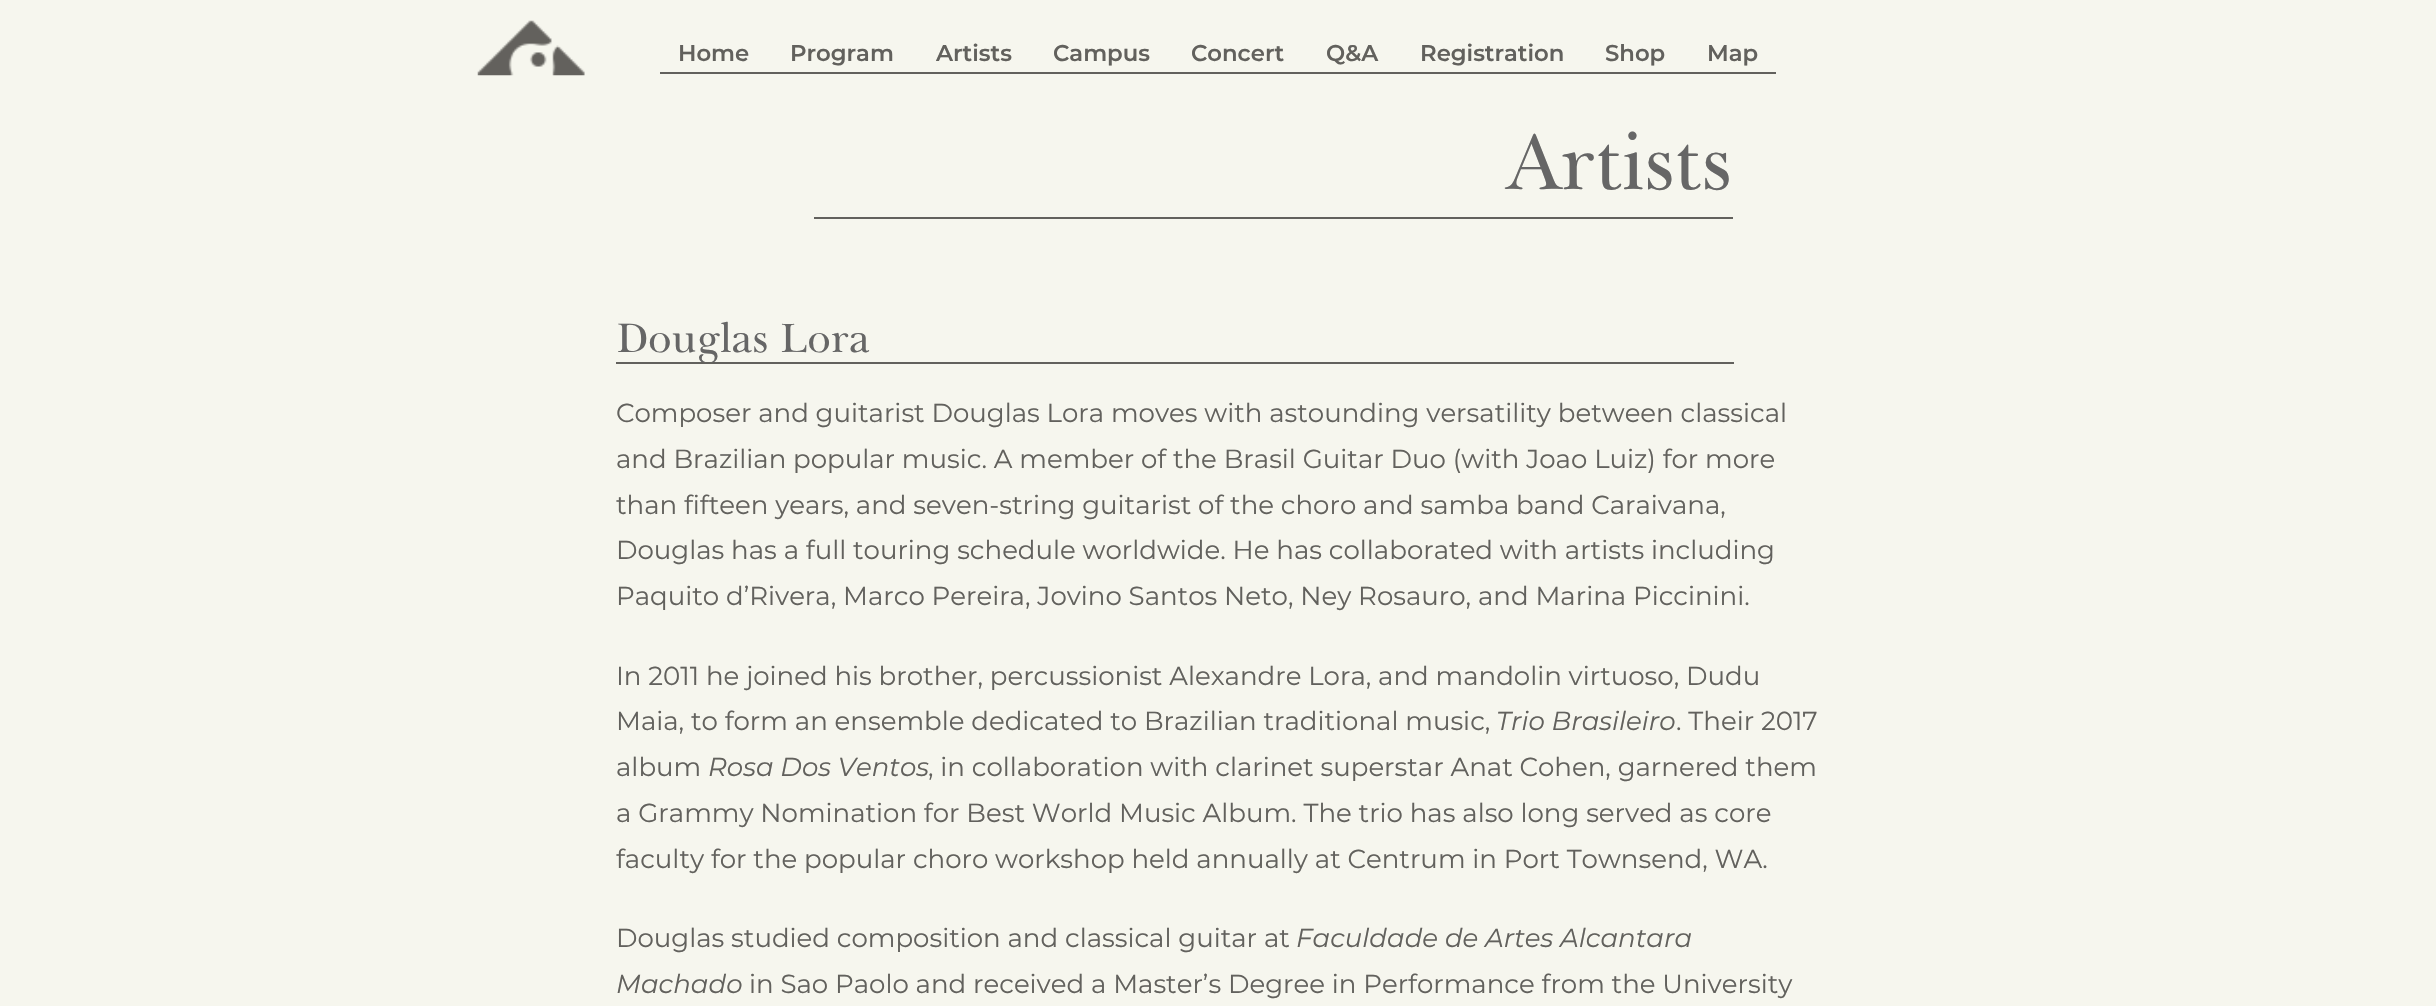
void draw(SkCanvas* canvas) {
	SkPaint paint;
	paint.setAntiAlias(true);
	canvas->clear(0xfff6f6ee);
	canvas->drawImageRect(SkImages::DeferredFromEncodedData(SkData::MakeFromFileName("img1.png")), SkRect::MakeXYWH(477, 20, 108, 56), SkSamplingOptions());
	paint.setColor(0xff62615d);
	canvas->drawRect(SkRect::MakeXYWH(660, 72, 1116, 2), paint);
	SkFont f1(fontMgr->matchFamilyStyle("Montserrat", SkFontStyle(600, SkFontStyle::kNormal_Width, SkFontStyle::kUpright_Slant)), 22.75);
	f1.setSubpixel(true);
	canvas->drawString("Home", 678, 61, f1, paint);
	canvas->drawString("Program", 790, 61, f1, paint);
	canvas->drawString("Artists", 936, 61, f1, paint);
	canvas->drawString("Campus", 1053, 61, f1, paint);
	canvas->drawString("Concert", 1191, 61, f1, paint);
	canvas->drawString("Q&A", 1326, 61, f1, paint);
	canvas->drawString("Registration", 1420, 61, f1, paint);
	canvas->drawString("Shop", 1605, 61, f1, paint);
	canvas->drawString("Map", 1707, 61, f1, paint);
	SkFont f2(fontMgr->matchFamilyStyle("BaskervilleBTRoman", SkFontStyle::Normal()), 80.5);
	f2.setSubpixel(true);
	paint.setColor(0xff666666);
	canvas->drawString("Artists", 1507, 189, f2, paint);
	paint.setColor(0xff62615d);
	canvas->drawRect(SkRect::MakeXYWH(814, 217, 919, 2), paint);
	SkFont f3(fontMgr->matchFamilyStyle("BaskervilleBTRoman", SkFontStyle::Normal()), 42);
	f3.setSubpixel(true);
	paint.setColor(0xff666666);
	canvas->drawString("Douglas Lora", 616, 352, f3, paint);
	paint.setColor(0xff62615d);
	canvas->drawRect(SkRect::MakeXYWH(616, 362, 1118, 2), paint);
	SkFont f4(fontMgr->matchFamilyStyle("Montserrat", SkFontStyle::Normal()), 26.05);
	f4.setSubpixel(true);
	canvas->drawString("Composer and guitarist Douglas Lora moves with astounding versatility between classical", 616, 422, f4, paint);
	canvas->drawString("and Brazilian popular music. A member of the Brasil Guitar Duo (with Joao Luiz) for more", 616, 468, f4, paint);
	canvas->drawString("than fifteen years, and seven-string guitarist of the choro and samba band Caraivana,", 616, 514, f4, paint);
	canvas->drawString("Douglas has a full touring schedule worldwide. He has collaborated with artists including", 616, 559, f4, paint);
	canvas->drawString("Paquito d’Rivera, Marco Pereira, Jovino Santos Neto, Ney Rosauro, and Marina Piccinini.", 616, 605, f4, paint);
	canvas->drawString("In 2011 he joined his brother, percussionist Alexandre Lora, and mandolin virtuoso, Dudu", 616, 685, f4, paint);
	canvas->drawString("Maia, to form an ensemble dedicated to Brazilian traditional music,", 616, 730, f4, paint);
	SkFont f5(fontMgr->matchFamilyStyle("Montserrat", SkFontStyle::Italic()), 26.05);
	f5.setSubpixel(true);
	canvas->drawString("Trio Brasileiro", 1496, 730, f5, paint);
	canvas->drawString(". Their 2017", 1676, 730, f4, paint);
	canvas->drawString("album", 616, 776, f4, paint);
	canvas->drawString("Rosa Dos Ventos", 708, 776, f5, paint);
	canvas->drawString(", in collaboration with clarinet superstar Anat Cohen, garnered them", 928, 776, f4, paint);
	canvas->drawString("a Grammy Nomination for Best World Music Album. The trio has also long served as core", 616, 822, f4, paint);
	canvas->drawString("faculty for the popular choro workshop held annually at Centrum in Port Townsend, WA.", 616, 868, f4, paint);
	canvas->drawString("Douglas studied composition and classical guitar at", 616, 947, f4, paint);
	canvas->drawString("Faculdade de Artes Alcantara", 1296, 947, f5, paint);
	canvas->drawString("Machado", 616, 993, f5, paint);
	canvas->drawString("in Sao Paolo and received a Master’s Degree in Performance from the University", 749, 993, f4, paint);
}
